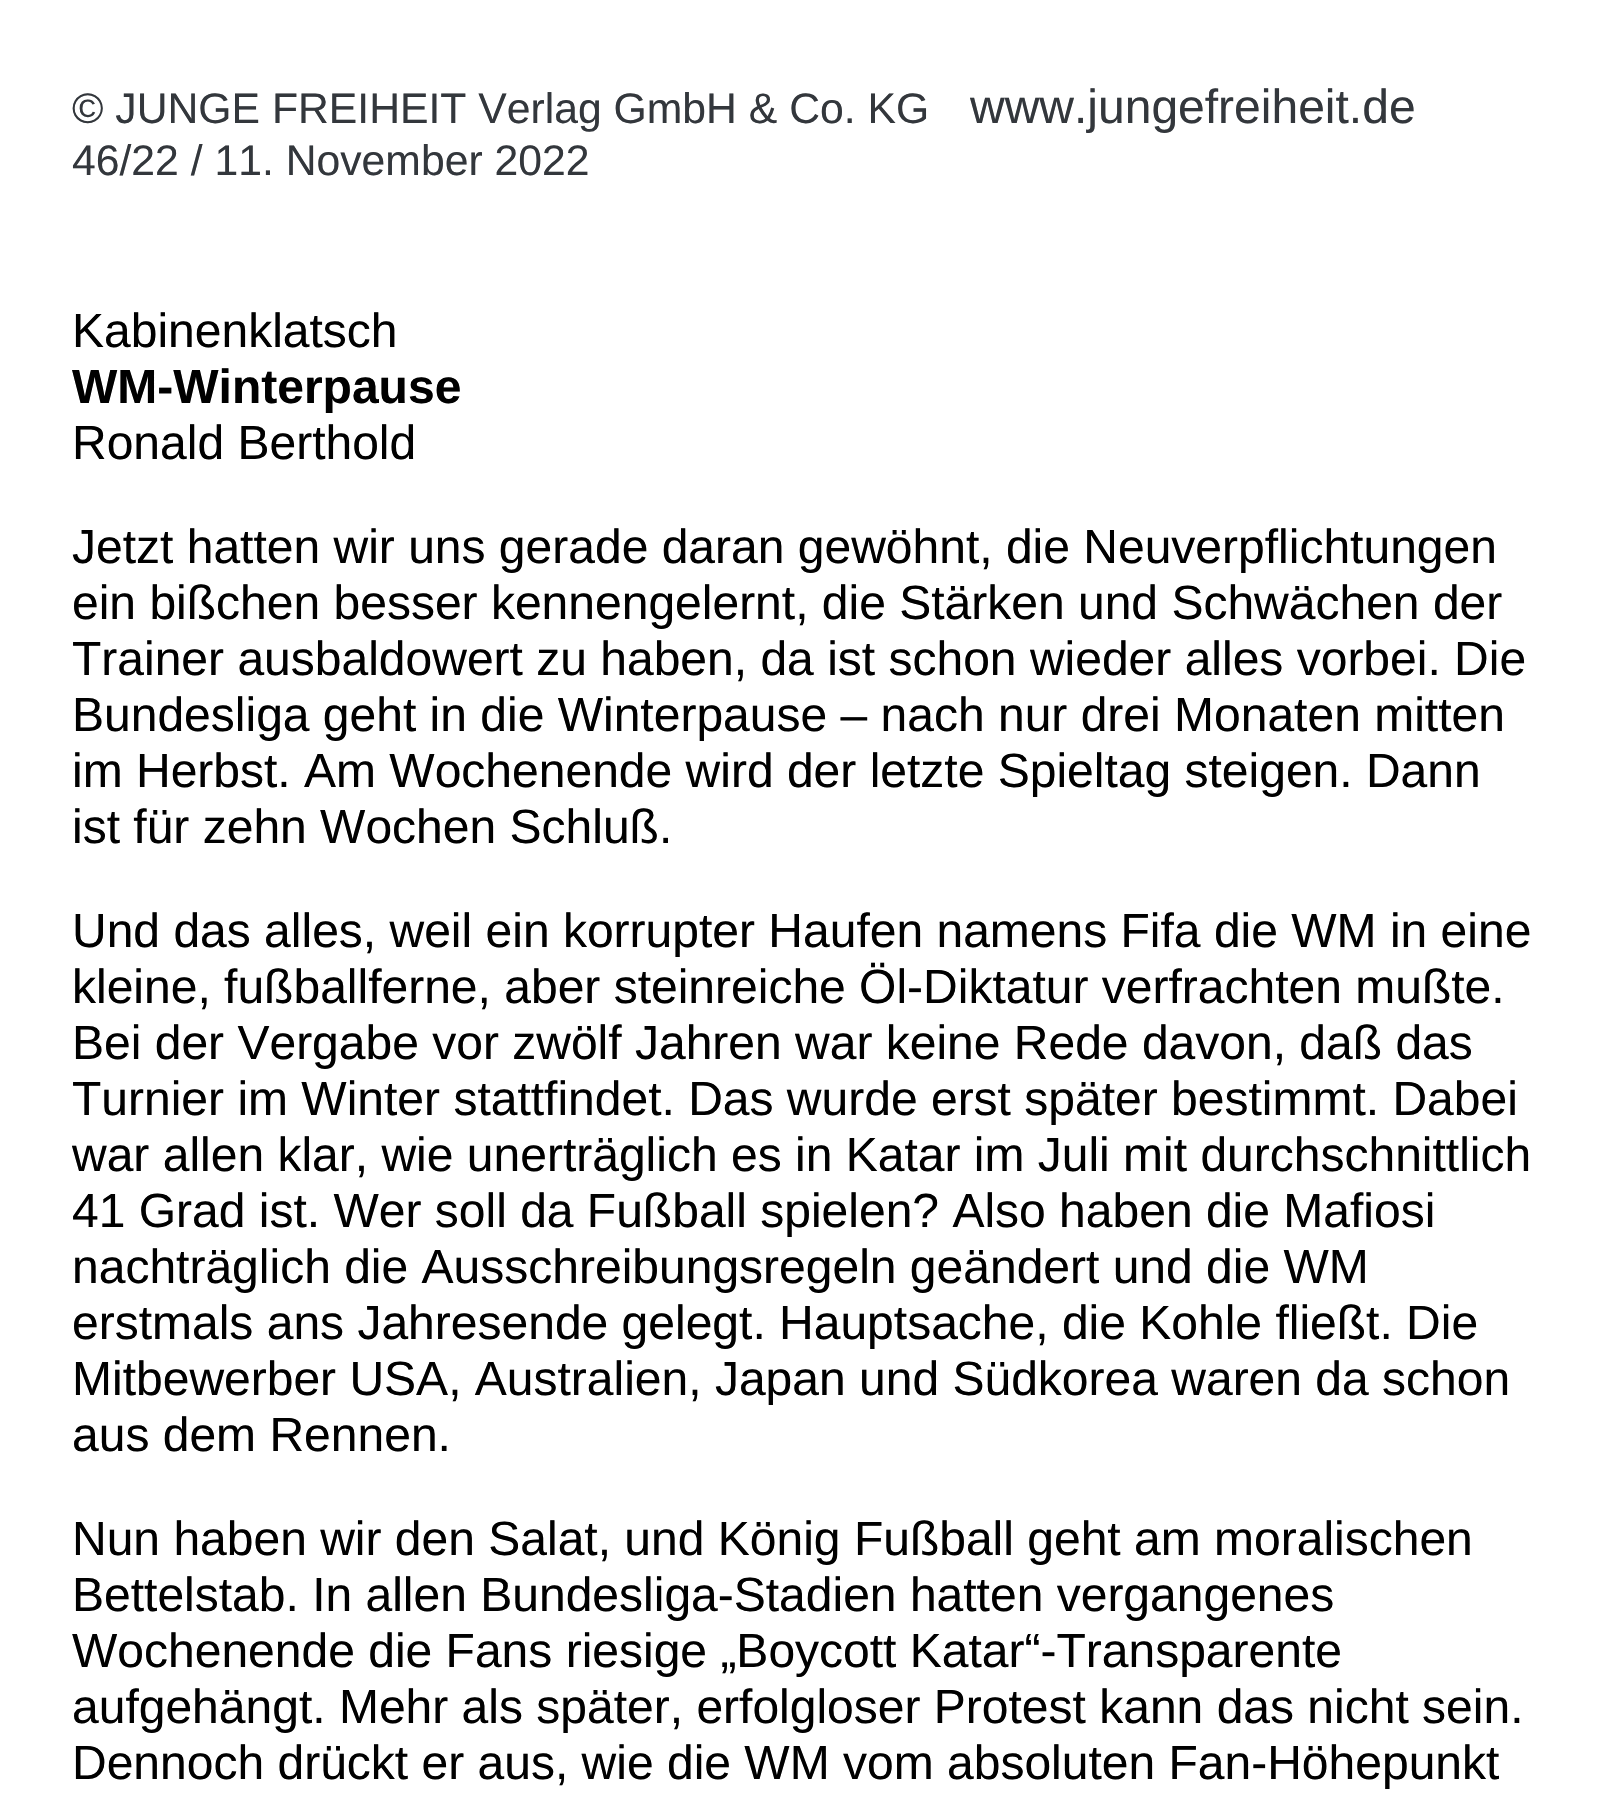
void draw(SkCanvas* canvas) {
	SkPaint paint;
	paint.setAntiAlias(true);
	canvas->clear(0xffffffff);
	SkFont f1(fontMgr->matchFamilyStyle("Liberation Sans", SkFontStyle::Normal()), 42.7);
	f1.setSubpixel(true);
	paint.setColor(0xff33373c);
	canvas->drawString("© JUNGE FREIHEIT Verlag GmbH & Co. KG", 72, 123, f1, paint);
	SkFont f2(fontMgr->matchFamilyStyle("Liberation Sans", SkFontStyle::Normal()), 48);
	f2.setSubpixel(true);
	canvas->drawString("www.jungefreiheit.de", 970, 123, f2, paint);
	canvas->drawString("46/22 / 11. November 2022", 72, 175, f1, paint);
	paint.setColor(0xff000000);
	canvas->drawString("Kabinenklatsch", 72, 347, f2, paint);
	SkFont f3(fontMgr->matchFamilyStyle("Liberation Sans", SkFontStyle::Bold()), 48);
	f3.setSubpixel(true);
	canvas->drawString("WM-Winterpause", 72, 403, f3, paint);
	canvas->drawString("Ronald Berthold", 72, 459, f2, paint);
	canvas->drawString("Jetzt hatten wir uns gerade daran gewöhnt, die Neuverpflichtungen", 72, 563, f2, paint);
	canvas->drawString("ein bißchen besser kennengelernt, die Stärken und Schwächen der", 72, 619, f2, paint);
	canvas->drawString("Trainer ausbaldowert zu haben, da ist schon wieder alles vorbei. Die", 72, 675, f2, paint);
	canvas->drawString("Bundesliga geht in die Winterpause – nach nur drei Monaten mitten", 72, 731, f2, paint);
	canvas->drawString("im Herbst. Am Wochenende wird der letzte Spieltag steigen. Dann", 72, 787, f2, paint);
	canvas->drawString("ist für zehn Wochen Schluß.", 72, 843, f2, paint);
	canvas->drawString("Und das alles, weil ein korrupter Haufen namens Fifa die WM in eine", 72, 947, f2, paint);
	canvas->drawString("kleine, fußballferne, aber steinreiche Öl-Diktatur verfrachten mußte.", 72, 1003, f2, paint);
	canvas->drawString("Bei der Vergabe vor zwölf Jahren war keine Rede davon, daß das", 72, 1059, f2, paint);
	canvas->drawString("Turnier im Winter stattfindet. Das wurde erst später bestimmt. Dabei", 72, 1115, f2, paint);
	canvas->drawString("war allen klar, wie unerträglich es in Katar im Juli mit durchschnittlich", 72, 1171, f2, paint);
	canvas->drawString("41 Grad ist. Wer soll da Fußball spielen? Also haben die Mafiosi", 72, 1227, f2, paint);
	canvas->drawString("nachträglich die Ausschreibungsregeln geändert und die WM", 72, 1283, f2, paint);
	canvas->drawString("erstmals ans Jahresende gelegt. Hauptsache, die Kohle fließt. Die", 72, 1339, f2, paint);
	canvas->drawString("Mitbewerber USA, Australien, Japan und Südkorea waren da schon", 72, 1395, f2, paint);
	canvas->drawString("aus dem Rennen.", 72, 1451, f2, paint);
	canvas->drawString("Nun haben wir den Salat, und König Fußball geht am moralischen", 72, 1555, f2, paint);
	canvas->drawString("Bettelstab. In allen Bundesliga-Stadien hatten vergangenes", 72, 1611, f2, paint);
	canvas->drawString("Wochenende die Fans riesige „Boycott Katar“-Transparente", 72, 1667, f2, paint);
	canvas->drawString("aufgehängt. Mehr als später, erfolgloser Protest kann das nicht sein.", 72, 1723, f2, paint);
	canvas->drawString("Dennoch drückt er aus, wie die WM vom absoluten Fan-Höhepunkt", 72, 1779, f2, paint);
}
